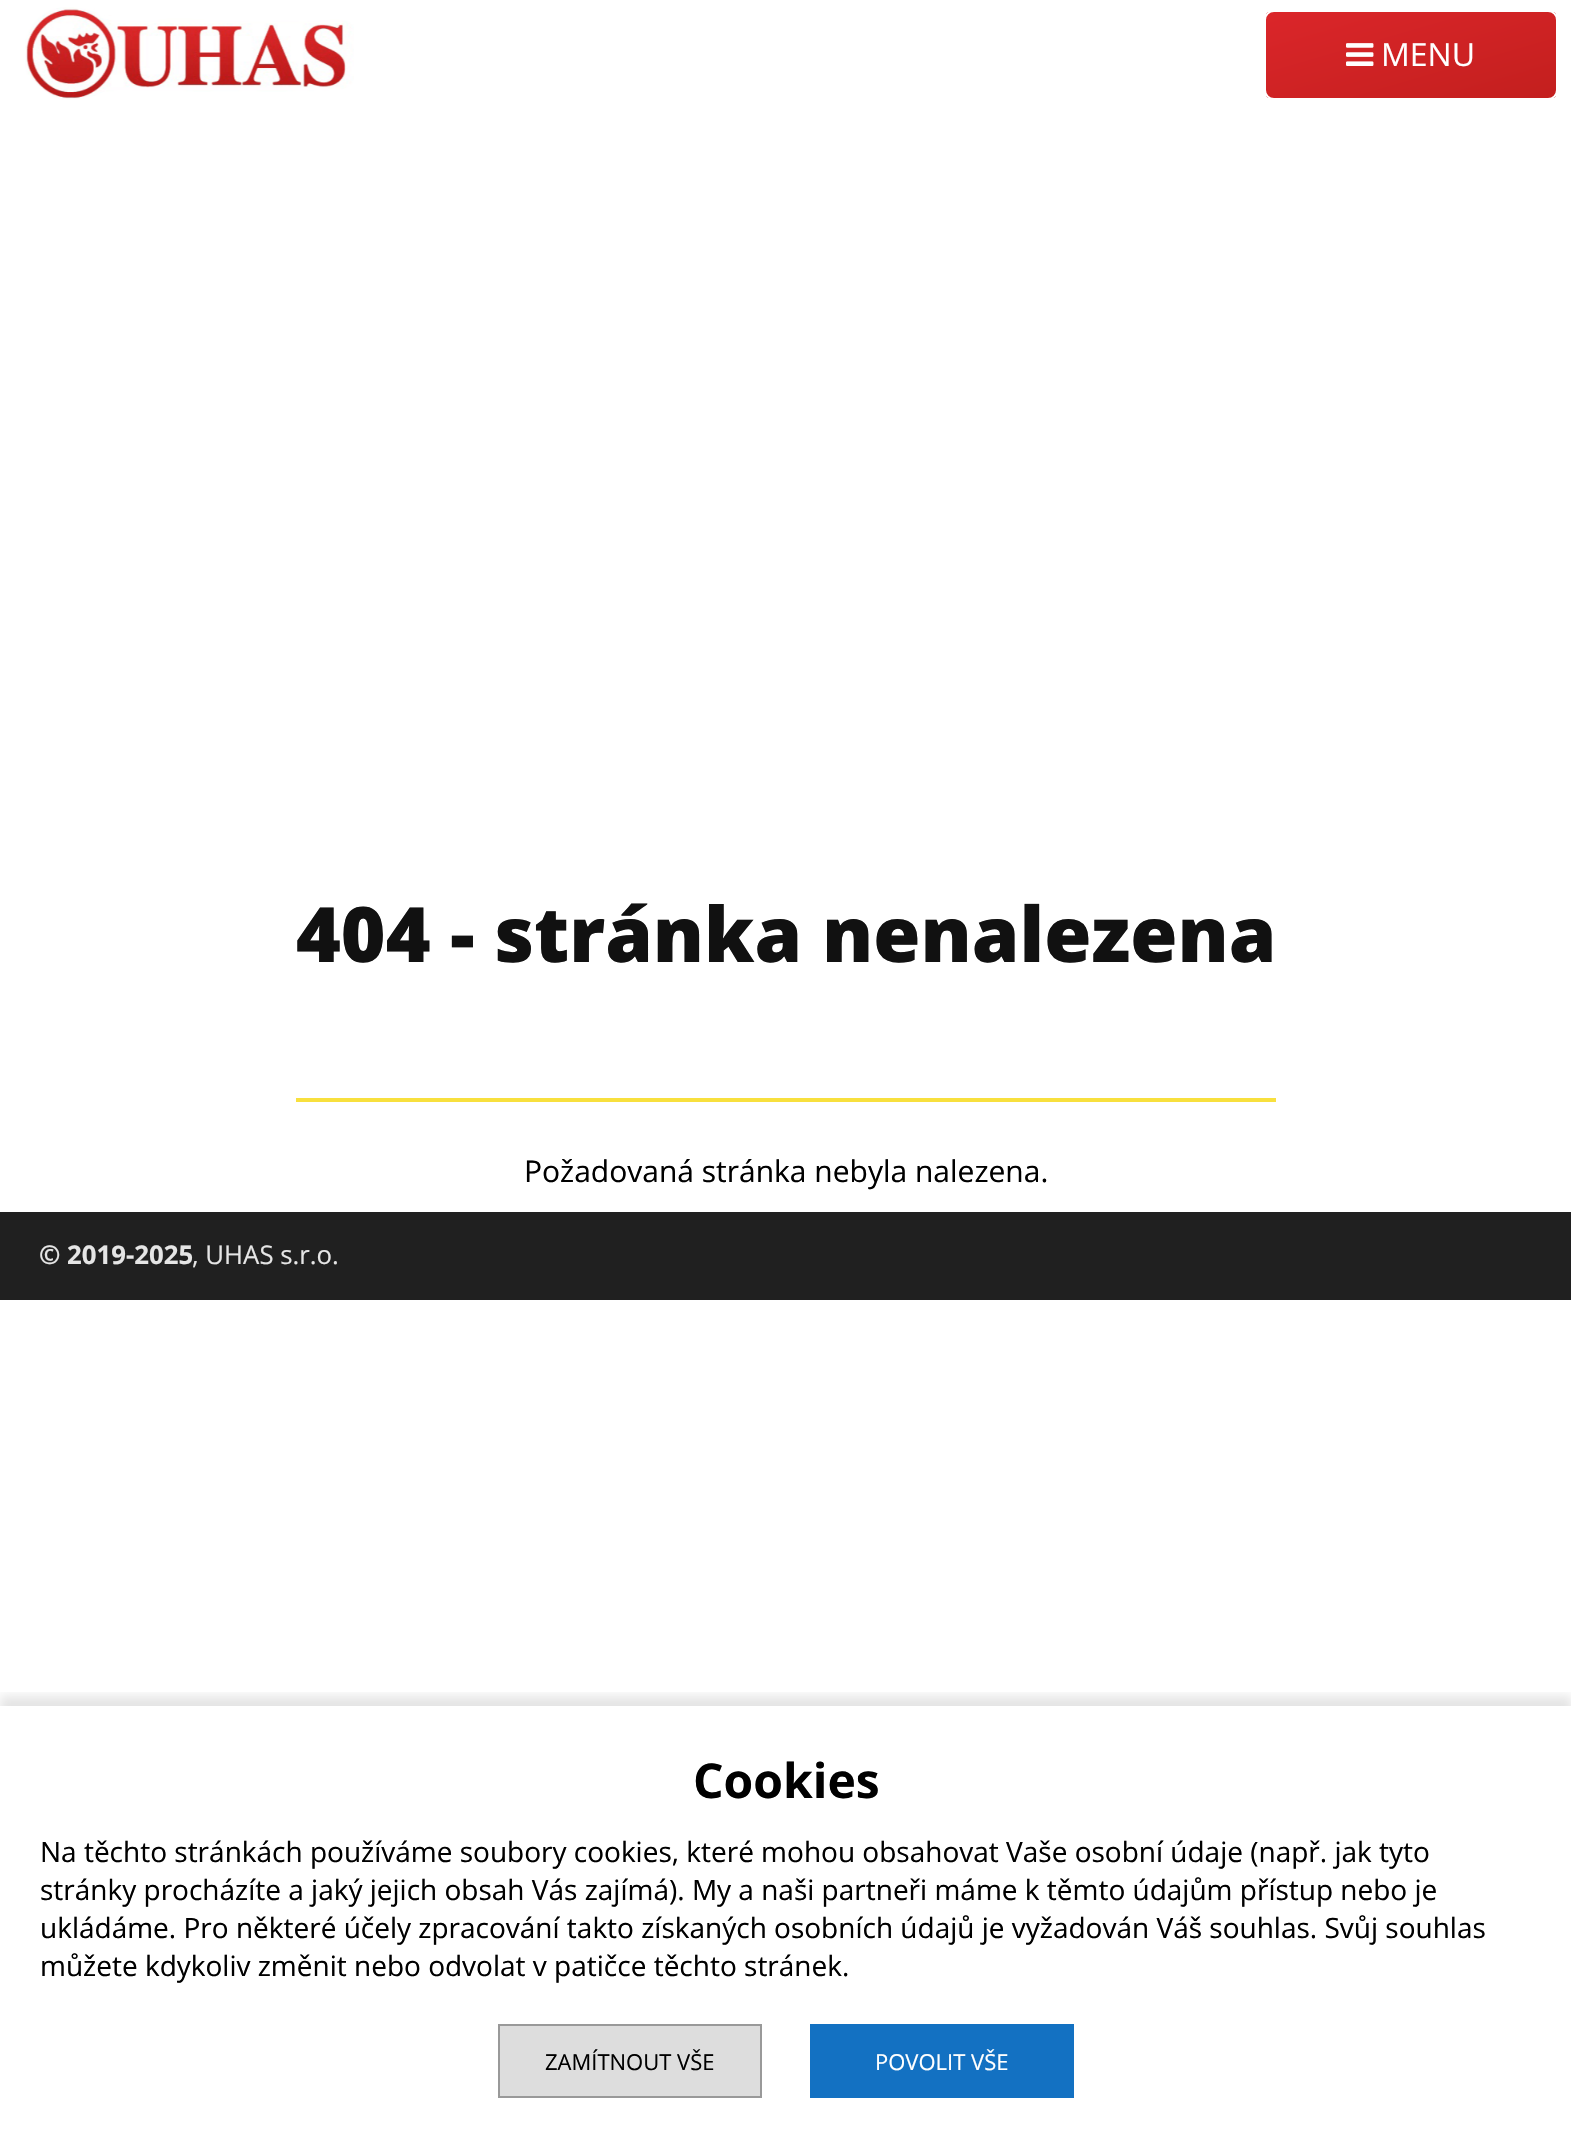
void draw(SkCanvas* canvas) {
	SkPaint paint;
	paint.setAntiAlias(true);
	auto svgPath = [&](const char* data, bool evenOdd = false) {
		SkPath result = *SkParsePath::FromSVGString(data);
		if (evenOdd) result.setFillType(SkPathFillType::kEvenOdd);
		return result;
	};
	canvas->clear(0xffffffff);
	canvas->drawImageRect(SkImages::DeferredFromEncodedData(SkData::MakeFromFileName("img1.png")), SkRect::MakeXYWH(25, 7, 329, 93), SkSamplingOptions());
	canvas->save();
	canvas->clipPath(svgPath("M1274 10H1548C1553.5 10 1558 14.5 1558 20V90C1558 95.5 1553.5 100 1548 100H1274C1268.5 100 1264 95.5 1264 90V20C1264 14.5 1268.5 10 1274 10Z"), true);
	{
		const SkColor colors[] = {0xffdb262a, 0xffc31f1e};
		const float stops[] = {0, 1};
		const SkPoint ends[] = {{1388, -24}, {1434, 134}};
		paint.setShader(SkGradientShader::MakeLinear(ends, colors, stops, 2, SkTileMode::kClamp));
		paint.setAlpha(255);
	}
	canvas->drawRect(SkRect::MakeXYWH(1266, 12, 290, 86), paint);
	canvas->restore();
	paint.setStroke(true);
	paint.setStrokeWidth(2);
	paint.setShader(nullptr);
	paint.setColor(0xffffffff);
	canvas->drawRoundRect(SkRect::MakeXYWH(1265, 11, 292, 88), 9, 9, paint);
	canvas->drawImageRect(SkImages::DeferredFromEncodedData(SkData::MakeFromFileName("img2.png")), SkRect::MakeXYWH(1346, 43, 28, 23), SkSamplingOptions());
	SkFont f1(fontMgr->matchFamilyStyle("Open Sans", SkFontStyle::Normal()), 32);
	f1.setSubpixel(true);
	paint.setStroke(false);
	canvas->drawString("MENU", 1381, 66, f1, paint);
	paint.setColor(0xfff8e03e);
	canvas->drawRect(SkRect::MakeXYWH(296, 1098, 980, 4), paint);
	SkFont f2(fontMgr->matchFamilyStyle("Open Sans", SkFontStyle(800, SkFontStyle::kNormal_Width, SkFontStyle::kUpright_Slant)), 76.5);
	f2.setSubpixel(true);
	paint.setColor(0xff111111);
	canvas->drawString("404 - stránka nenalezena", 296, 962, f2, paint);
	SkFont f3(fontMgr->matchFamilyStyle("Open Sans", SkFontStyle::Normal()), 30);
	f3.setSubpixel(true);
	paint.setColor(0xff000000);
	canvas->drawString("Požadovaná stránka nebyla nalezena.", 524, 1182, f3, paint);
	paint.setColor(0xff202020);
	canvas->drawRect(SkRect::MakeXYWH(0, 1212, 1571, 88), paint);
	SkFont f4(fontMgr->matchFamilyStyle("Open Sans", SkFontStyle::Bold()), 25.75);
	f4.setSubpixel(true);
	paint.setColor(0xffe5e5e5);
	canvas->drawString("© 2019-2025", 39, 1264, f4, paint);
	SkFont f5(fontMgr->matchFamilyStyle("Open Sans", SkFontStyle::Normal()), 25.75);
	f5.setSubpixel(true);
	canvas->drawString(", UHAS s.r.o.", 192, 1264, f5, paint);
	canvas->save();
	canvas->clipRect(SkRect::MakeXYWH(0, 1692, 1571, 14));
	paint.setColor(0x1a000000);
	paint.setMaskFilter(SkMaskFilter::MakeBlur(kNormal_SkBlurStyle, 5));
	canvas->drawRect(SkRect::MakeXYWH(0, 1696, 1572, 432), paint);
	paint.setMaskFilter(nullptr);
	canvas->restore();
	SkFont f6(fontMgr->matchFamilyStyle("Open Sans", SkFontStyle::Bold()), 48);
	f6.setSubpixel(true);
	paint.setColor(0xff000000);
	canvas->drawString("Cookies", 693, 1798, f6, paint);
	SkFont f7(fontMgr->matchFamilyStyle("Open Sans", SkFontStyle::Normal()), 28);
	f7.setSubpixel(true);
	canvas->drawString("Na těchto stránkách používáme soubory cookies, které mohou obsahovat Vaše osobní údaje (např. jak tyto", 40, 1862, f7, paint);
	canvas->drawString("stránky procházíte a jaký jejich obsah Vás zajímá). My a naši partneři máme k těmto údajům přístup nebo je", 40, 1900, f7, paint);
	canvas->drawString("ukládáme. Pro některé účely zpracování takto získaných osobních údajů je vyžadován Váš souhlas. Svůj souhlas", 40, 1938, f7, paint);
	canvas->drawString("můžete kdykoliv změnit nebo odvolat v patičce těchto stránek.", 40, 1976, f7, paint);
	paint.setColor(0xffdddddd);
	canvas->drawRect(SkRect::MakeXYWH(499, 2025, 262, 72), paint);
	paint.setStroke(true);
	paint.setColor(0xff999999);
	canvas->drawRect(SkRect::MakeXYWH(499, 2025, 262, 72), paint);
	SkFont f8(fontMgr->matchFamilyStyle("Open Sans", SkFontStyle::Normal()), 22);
	f8.setSubpixel(true);
	paint.setStroke(false);
	paint.setColor(0xff000000);
	canvas->drawString("ZAMÍTNOUT VŠE", 545, 2070, f8, paint);
	paint.setColor(0xff1371c2);
	canvas->drawRect(SkRect::MakeXYWH(810, 2024, 264, 74), paint);
	paint.setColor(0xffffffff);
	canvas->drawString("POVOLIT VŠE", 875, 2070, f8, paint);
}
